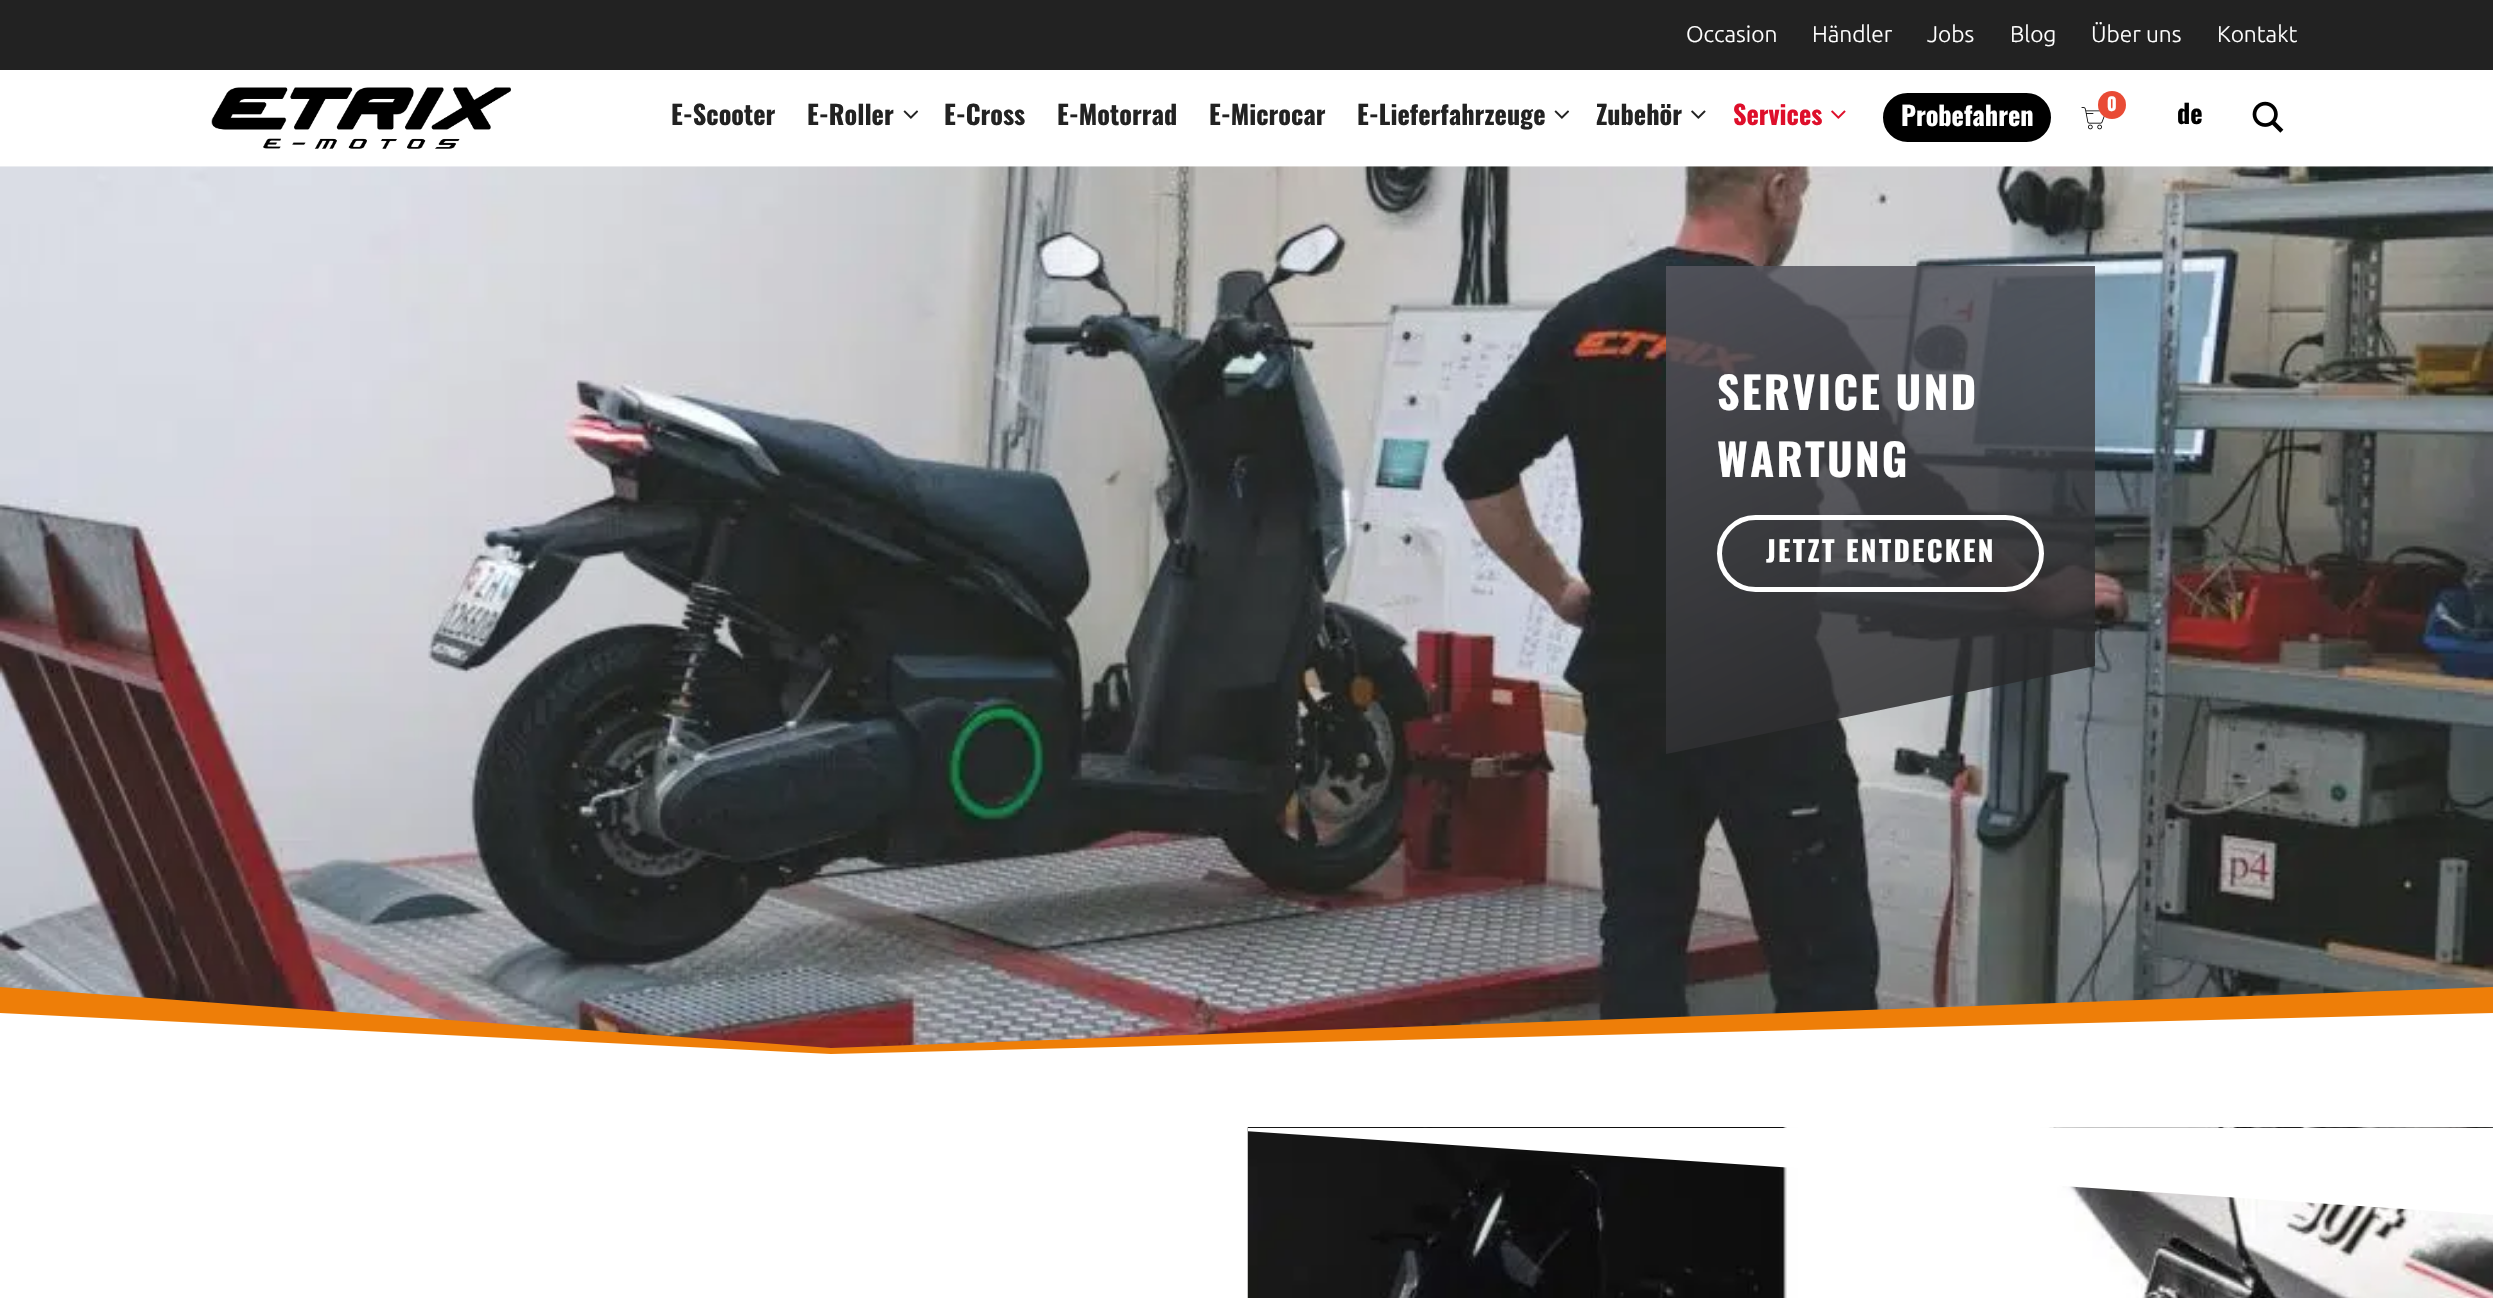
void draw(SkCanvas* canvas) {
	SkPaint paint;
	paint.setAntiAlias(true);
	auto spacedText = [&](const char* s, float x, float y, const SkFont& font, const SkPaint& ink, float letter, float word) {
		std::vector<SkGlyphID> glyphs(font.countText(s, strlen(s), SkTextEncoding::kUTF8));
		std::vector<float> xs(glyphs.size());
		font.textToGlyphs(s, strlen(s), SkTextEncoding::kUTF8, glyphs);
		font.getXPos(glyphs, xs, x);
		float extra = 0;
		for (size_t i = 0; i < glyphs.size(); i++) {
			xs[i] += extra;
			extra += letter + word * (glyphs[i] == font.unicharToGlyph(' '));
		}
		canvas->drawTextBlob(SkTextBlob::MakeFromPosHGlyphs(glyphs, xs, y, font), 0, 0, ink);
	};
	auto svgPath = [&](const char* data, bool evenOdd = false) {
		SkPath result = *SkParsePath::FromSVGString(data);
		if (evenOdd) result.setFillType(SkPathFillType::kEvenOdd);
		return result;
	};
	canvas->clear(0xffffffff);
	paint.setColor(0xff222222);
	canvas->drawRect(SkRect::MakeXYWH(0, 0, 2493, 70), paint);
	SkFont f1(fontMgr->matchFamilyStyle("Ubuntu", SkFontStyle(300, SkFontStyle::kNormal_Width, SkFontStyle::kUpright_Slant)), 22.75);
	f1.setSubpixel(true);
	paint.setColor(0xffffffff);
	canvas->drawString("Occasion", 1686, 42, f1, paint);
	canvas->drawString("Händler", 1812, 42, f1, paint);
	canvas->drawString("Jobs", 1927, 42, f1, paint);
	canvas->drawString("Blog", 2010, 42, f1, paint);
	canvas->drawString("Über uns", 2091, 42, f1, paint);
	canvas->drawString("Kontakt", 2217, 42, f1, paint);
	canvas->drawImageRect(SkImages::DeferredFromEncodedData(SkData::MakeFromFileName("img1.png")), SkRect::MakeXYWH(211, 87, 300, 62), SkSamplingOptions());
	SkFont f2(fontMgr->matchFamilyStyle("Oswald", SkFontStyle::Bold()), 26.25);
	f2.setSubpixel(true);
	paint.setColor(0xff222222);
	canvas->drawString("E-Scooter", 671, 125, f2, paint);
	canvas->drawString("E-Roller", 807, 125, f2, paint);
	canvas->drawImageRect(SkImages::DeferredFromEncodedData(SkData::MakeFromFileName("img2.png")), SkRect::MakeXYWH(903, 110, 16, 9), SkSamplingOptions());
	canvas->drawString("E-Cross", 944, 125, f2, paint);
	canvas->drawString("E-Motorrad", 1057, 125, f2, paint);
	canvas->drawString("E-Microcar", 1209, 125, f2, paint);
	canvas->drawString("E-Lieferfahrzeuge", 1357, 125, f2, paint);
	canvas->drawImageRect(SkImages::DeferredFromEncodedData(SkData::MakeFromFileName("img2.png")), SkRect::MakeXYWH(1554, 110, 16, 9), SkSamplingOptions());
	canvas->drawString("Zubehör", 1596, 125, f2, paint);
	canvas->drawImageRect(SkImages::DeferredFromEncodedData(SkData::MakeFromFileName("img3.png")), SkRect::MakeXYWH(1691, 110, 15, 9), SkSamplingOptions());
	paint.setColor(0xffde0f2b);
	canvas->drawString("Services", 1733, 125, f2, paint);
	canvas->drawImageRect(SkImages::DeferredFromEncodedData(SkData::MakeFromFileName("img4.png")), SkRect::MakeXYWH(1831, 110, 15, 9), SkSamplingOptions());
	paint.setColor(0xff000000);
	canvas->drawRoundRect(SkRect::MakeXYWH(1885, 95, 164, 45), 22.5, 22.5, paint);
	paint.setStroke(true);
	paint.setStrokeWidth(4);
	canvas->drawRoundRect(SkRect::MakeXYWH(1885, 95, 164, 45), 22.5, 22.5, paint);
	paint.setStroke(false);
	paint.setColor(0xffffffff);
	canvas->drawString("Probefahren", 1901, 126, f2, paint);
	canvas->drawImageRect(SkImages::DeferredFromEncodedData(SkData::MakeFromFileName("img5.png")), SkRect::MakeXYWH(2081, 107, 24, 23), SkSamplingOptions());
	paint.setColor(0xffe94b35);
	canvas->drawCircle(2112, 105, 14, paint);
	SkFont f3(fontMgr->matchFamilyStyle("Oswald", SkFontStyle::Bold()), 18);
	f3.setSubpixel(true);
	paint.setColor(0xffffffff);
	canvas->drawString("0", 2107, 111, f3, paint);
	paint.setColor(0xff000000);
	canvas->drawString("de", 2177, 124, f2, paint);
	canvas->drawImageRect(SkImages::DeferredFromEncodedData(SkData::MakeFromFileName("img6.png")), SkRect::MakeXYWH(2252, 101, 32, 32), SkSamplingOptions());
	canvas->drawImageRect(SkImages::DeferredFromEncodedData(SkData::MakeFromFileName("img7.png")), SkRect::MakeXYWH(0, 166, 2493, 882), SkSamplingOptions());
	SkFont f4(fontMgr->matchFamilyStyle("Oswald", SkFontStyle::Bold()), 44);
	f4.setSubpixel(true);
	paint.setColor(0xffffffff);
	spacedText("SERVICE UND", 1717, 410, f4, paint, 2.25, 0);
	spacedText("WARTUNG", 1717, 477, f4, paint, 2.25, 0);
	paint.setStroke(true);
	paint.setStrokeWidth(5);
	canvas->drawRoundRect(SkRect::MakeXYWH(1719.5, 517.5, 322, 72), 36, 36, paint);
	SkFont f5(fontMgr->matchFamilyStyle("Oswald", SkFontStyle::Bold()), 28);
	f5.setSubpixel(true);
	paint.setStroke(false);
	spacedText("JETZT ENTDECKEN", 1766, 562, f5, paint, 2.25, 0);
	canvas->save();
	canvas->clipRect(SkRect::MakeXYWH(0, 987, 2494, 77));
	paint.setColor(0xffee7e08);
	canvas->drawPath(svgPath("M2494 1066H0V987L831 1048L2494 987Z"), paint);
	canvas->restore();
	canvas->save();
	canvas->clipRect(SkRect::MakeXYWH(0, 1013, 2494, 51));
	paint.setColor(0xffffffff);
	canvas->drawPath(svgPath("M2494 1066H0V1013L831 1054L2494 1013Z"), paint);
	canvas->restore();
	canvas->drawImageRect(SkImages::DeferredFromEncodedData(SkData::MakeFromFileName("img8.png")), SkRect::MakeXYWH(1247, 1127, 1246, 171), SkSamplingOptions());
	canvas->save();
	canvas->clipRect(SkRect::MakeXYWH(1248, 1127, 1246, 88));
	canvas->drawPath(svgPath("M1246 1128H2493V1215L1246 1131Z"), paint);
	canvas->restore();
}
